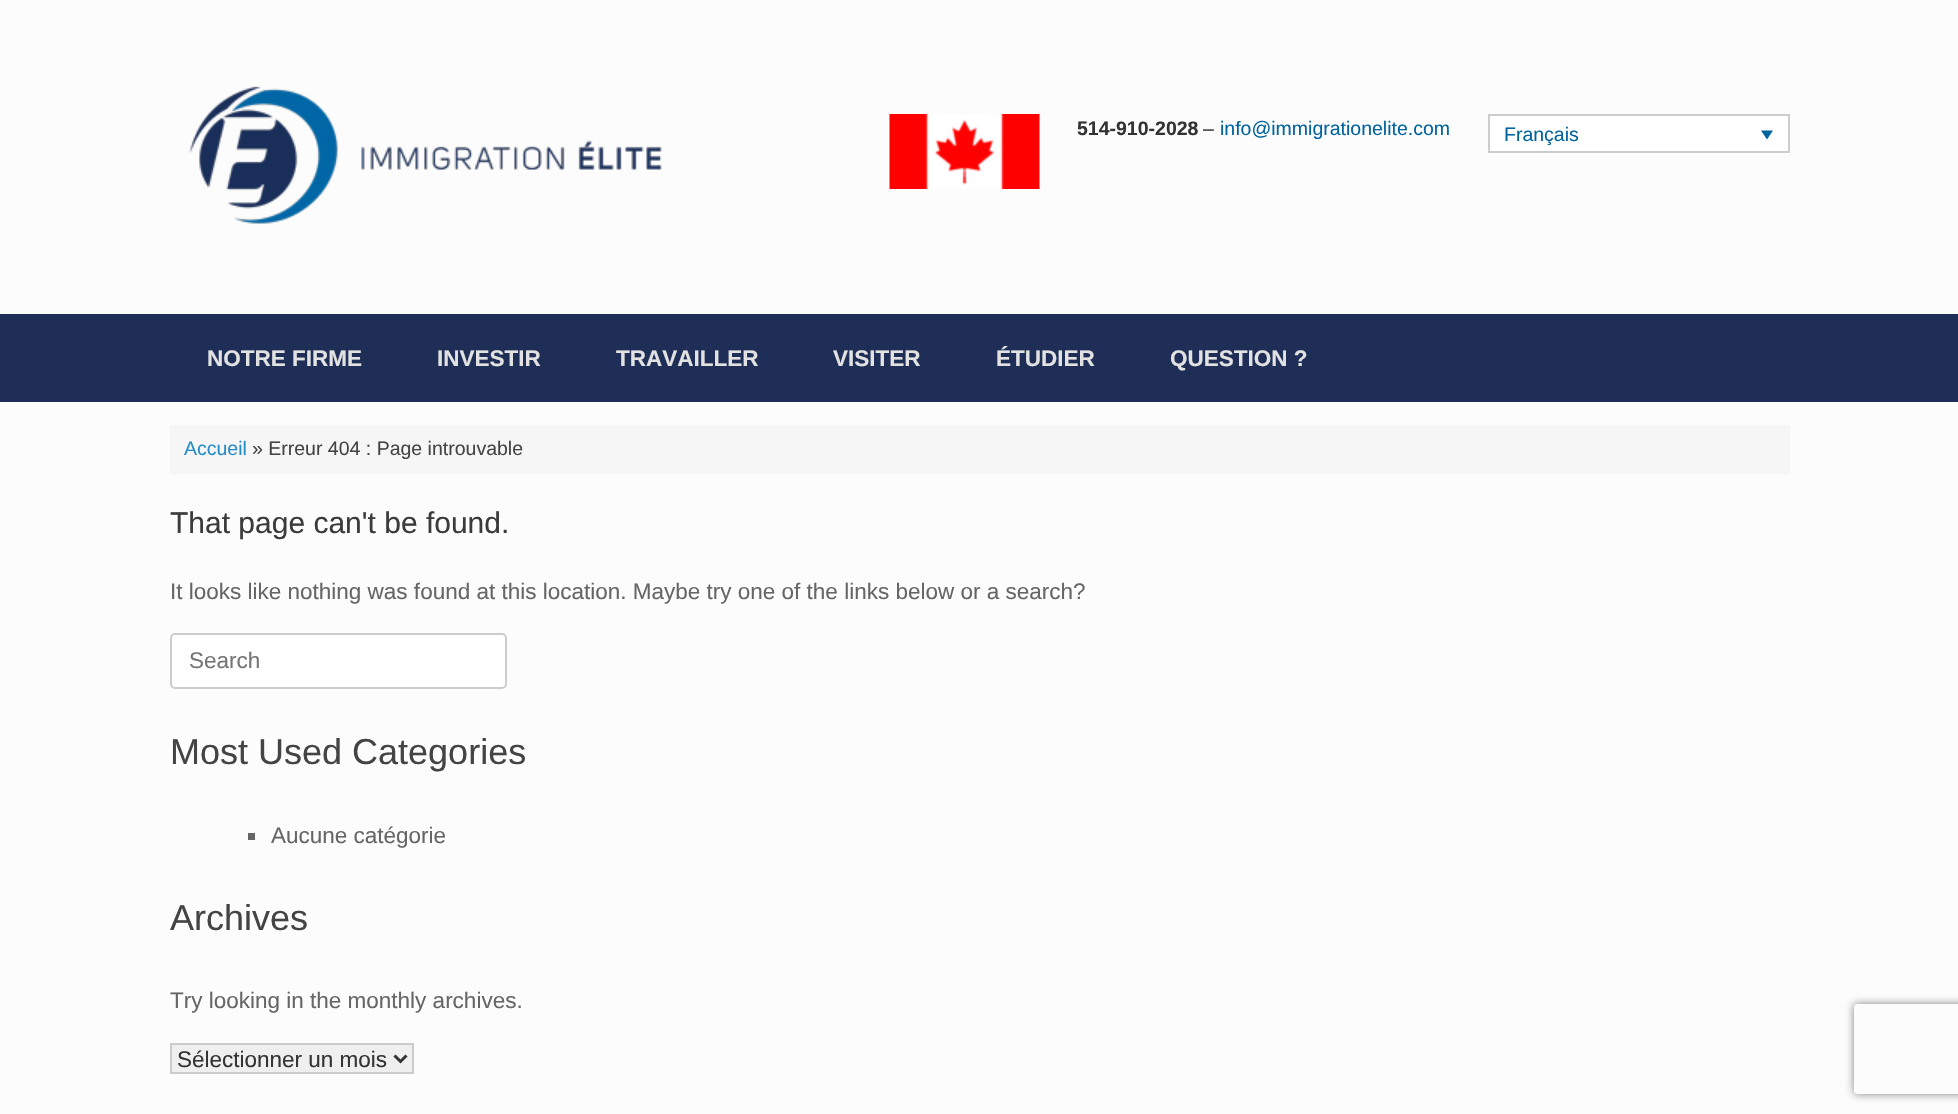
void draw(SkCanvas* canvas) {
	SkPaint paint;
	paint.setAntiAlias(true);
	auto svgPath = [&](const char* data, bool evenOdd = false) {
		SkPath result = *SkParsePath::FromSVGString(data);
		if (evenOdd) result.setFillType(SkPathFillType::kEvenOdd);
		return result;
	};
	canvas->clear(0xfffcfcfc);
	canvas->drawImageRect(SkImages::DeferredFromEncodedData(SkData::MakeFromFileName("img1.png")), SkRect::MakeXYWH(189, 86, 473, 138), SkSamplingOptions());
	canvas->drawImageRect(SkImages::DeferredFromEncodedData(SkData::MakeFromFileName("img2.png")), SkRect::MakeXYWH(889, 114, 151, 75), SkSamplingOptions());
	SkFont f1(fontMgr->matchFamilyStyle("Liberation Sans", SkFontStyle::Bold()), 19.5);
	f1.setSubpixel(true);
	paint.setColor(0xff333333);
	canvas->drawString("514-910-2028", 1077, 135, f1, paint);
	SkFont f2(fontMgr->matchFamilyStyle("Liberation Sans", SkFontStyle::Normal()), 19.5);
	f2.setSubpixel(true);
	canvas->drawString("–", 1203, 135, f2, paint);
	paint.setColor(0xff01649f);
	canvas->drawString("info@immigrationelite.com", 1220, 135, f2, paint);
	paint.setColor(0xffffffff);
	canvas->drawRect(SkRect::MakeXYWH(1489, 115, 300, 37), paint);
	paint.setStroke(true);
	paint.setStrokeWidth(2);
	paint.setColor(0xffcdcdcd);
	canvas->drawRect(SkRect::MakeXYWH(1489, 115, 300, 37), paint);
	paint.setStroke(false);
	paint.setColor(0xff01649f);
	canvas->drawString("Français", 1504, 141, f2, paint);
	canvas->drawPath(svgPath("M1761 130.5H1773L1767 139.5Z"), paint);
	paint.setColor(0xff1e2e56);
	canvas->drawRect(SkRect::MakeXYWH(0, 314, 1958, 88), paint);
	SkFont f3(fontMgr->matchFamilyStyle("Liberation Sans", SkFontStyle::Bold()), 22.5);
	f3.setSubpixel(true);
	paint.setColor(0xffe2e2e2);
	canvas->drawString("NOTRE FIRME", 207, 366, f3, paint);
	canvas->drawString("INVESTIR", 437, 366, f3, paint);
	canvas->drawString("TRAVAILLER", 616, 366, f3, paint);
	canvas->drawString("VISITER", 833, 366, f3, paint);
	canvas->drawString("ÉTUDIER", 996, 366, f3, paint);
	canvas->drawString("QUESTION ?", 1170, 366, f3, paint);
	paint.setColor(0xfff6f6f6);
	canvas->drawRect(SkRect::MakeXYWH(170, 425, 1620, 49), paint);
	paint.setColor(0xff248cc8);
	canvas->drawString("Accueil", 184, 455, f2, paint);
	paint.setColor(0xff444444);
	canvas->drawString("» Erreur 404 : Page introuvable", 252, 455, f2, paint);
	SkFont f4(fontMgr->matchFamilyStyle("Liberation Sans", SkFontStyle::Normal()), 30);
	f4.setSubpixel(true);
	paint.setColor(0xff3b3b3b);
	canvas->drawString("That page can't be found.", 170, 533, f4, paint);
	SkFont f5(fontMgr->matchFamilyStyle("Liberation Sans", SkFontStyle::Normal()), 22.5);
	f5.setSubpixel(true);
	paint.setColor(0xff666666);
	canvas->drawString("It looks like nothing was found at this location. Maybe try one of the links below or a search?", 170, 599, f5, paint);
	paint.setColor(0xffffffff);
	canvas->drawRoundRect(SkRect::MakeXYWH(171, 634, 335, 54), 4, 4, paint);
	paint.setStroke(true);
	paint.setColor(0xffcccccc);
	canvas->drawRoundRect(SkRect::MakeXYWH(171, 634, 335, 54), 4, 4, paint);
	paint.setStroke(false);
	paint.setColor(0xff757575);
	canvas->drawString("Search", 189, 668, f5, paint);
	SkFont f6(fontMgr->matchFamilyStyle("Liberation Sans", SkFontStyle::Normal()), 36);
	f6.setSubpixel(true);
	paint.setColor(0xff444444);
	canvas->drawString("Most Used Categories", 170, 764, f6, paint);
	paint.setColor(0xff666666);
	canvas->drawRect(SkRect::MakeXYWH(248, 833, 7, 7), paint);
	canvas->drawString("Aucune catégorie", 271, 843, f5, paint);
	paint.setColor(0xff444444);
	canvas->drawString("Archives", 170, 930, f6, paint);
	paint.setColor(0xff666666);
	canvas->drawString("Try looking in the monthly archives.", 170, 1008, f5, paint);
	paint.setColor(0xffefefef);
	canvas->drawRect(SkRect::MakeXYWH(171, 1044, 242, 29), paint);
	paint.setStroke(true);
	paint.setColor(0xffcccccc);
	canvas->drawRect(SkRect::MakeXYWH(171, 1044, 242, 29), paint);
	paint.setStrokeWidth(3);
	paint.setColor(0xff333333);
	canvas->drawPath(svgPath("M394.5 1055.5L400.5 1061.5L406.5 1055.5"), paint);
	paint.setStroke(false);
	canvas->drawString("Sélectionner un mois", 177, 1067, f5, paint);
	canvas->save();
	canvas->clipPath(svgPath("M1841 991H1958V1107H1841ZM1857 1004H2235C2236.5 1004 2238 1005.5 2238 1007V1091C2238 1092.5 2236.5 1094 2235 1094H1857C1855.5 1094 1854 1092.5 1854 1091V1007C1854 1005.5 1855.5 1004 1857 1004Z", true), true);
	paint.setColor(0xff808080);
	paint.setMaskFilter(SkMaskFilter::MakeBlur(kNormal_SkBlurStyle, 4));
	canvas->drawRoundRect(SkRect::MakeXYWH(1854, 1004, 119, 90), 3, 3, paint);
	paint.setMaskFilter(nullptr);
	canvas->restore();
}
